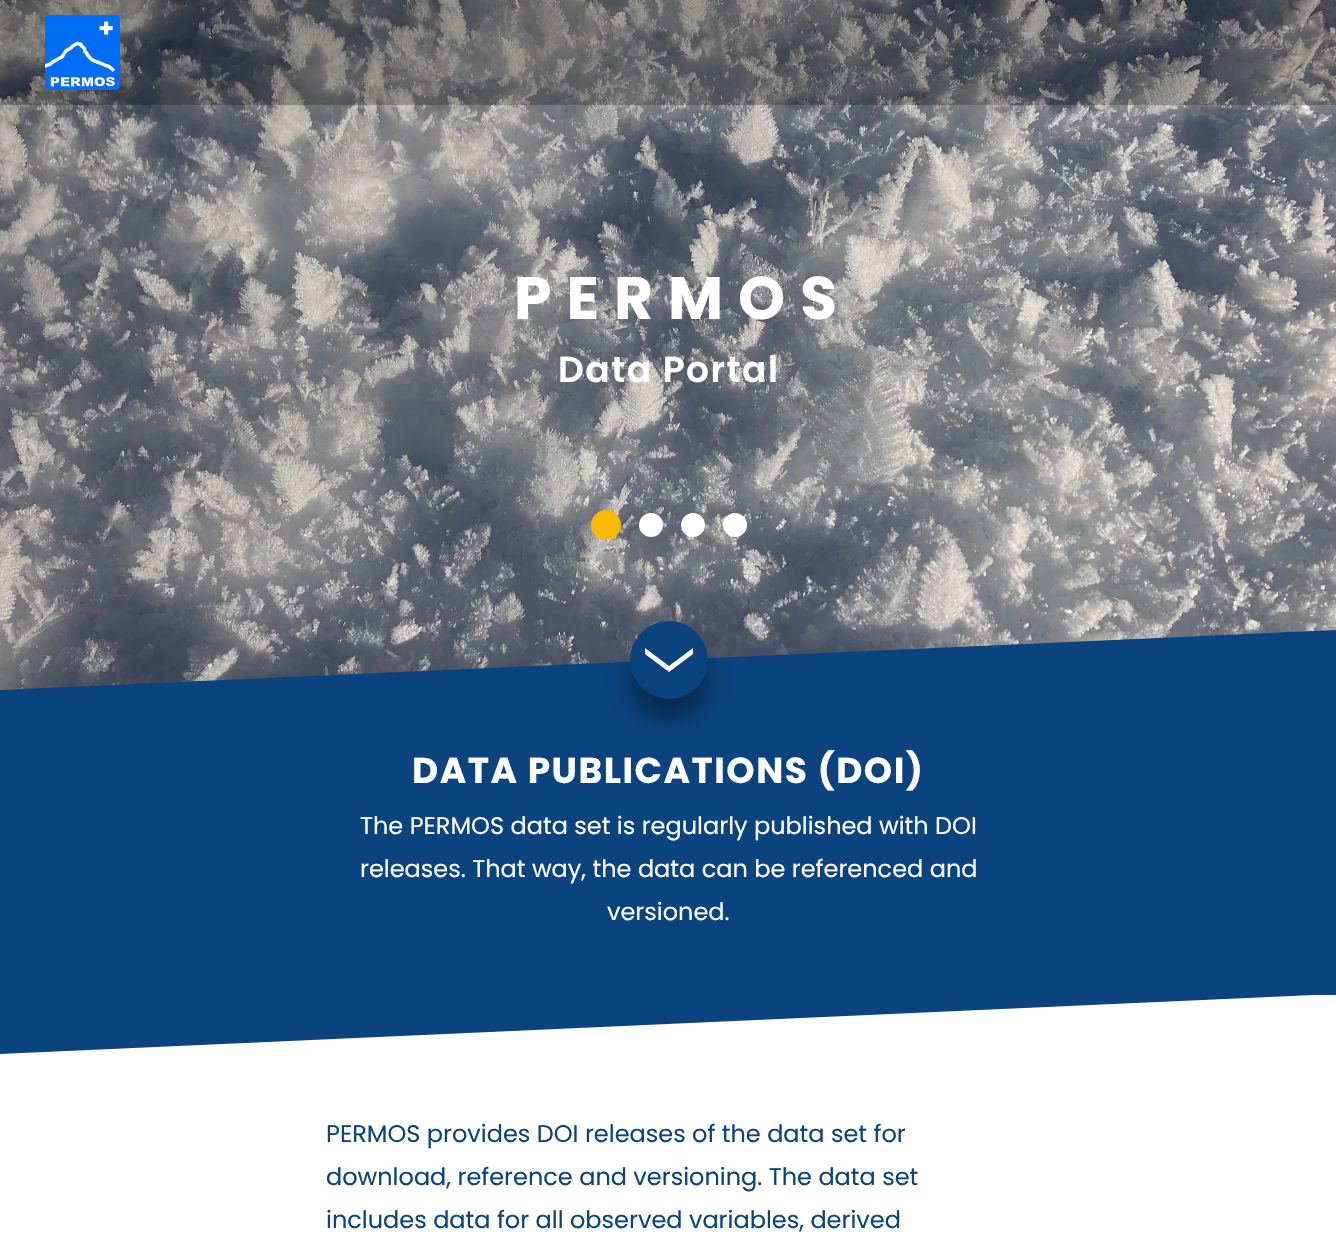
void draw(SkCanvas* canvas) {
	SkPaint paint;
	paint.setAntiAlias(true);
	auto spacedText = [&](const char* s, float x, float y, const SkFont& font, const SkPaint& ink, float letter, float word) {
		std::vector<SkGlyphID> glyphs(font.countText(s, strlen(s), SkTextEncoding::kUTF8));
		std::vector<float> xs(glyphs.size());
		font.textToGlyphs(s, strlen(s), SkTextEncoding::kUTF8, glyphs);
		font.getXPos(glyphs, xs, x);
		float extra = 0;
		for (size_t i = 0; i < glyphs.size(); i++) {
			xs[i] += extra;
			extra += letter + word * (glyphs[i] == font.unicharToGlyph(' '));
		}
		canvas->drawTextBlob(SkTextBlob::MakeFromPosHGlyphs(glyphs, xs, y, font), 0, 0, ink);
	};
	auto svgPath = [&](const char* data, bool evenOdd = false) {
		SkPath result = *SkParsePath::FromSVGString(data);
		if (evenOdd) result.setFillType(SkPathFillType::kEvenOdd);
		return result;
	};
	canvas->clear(0xffffffff);
	canvas->drawImageRect(SkImages::DeferredFromEncodedData(SkData::MakeFromFileName("img2.png")), SkRect::MakeXYWH(0, 0, 1336, 690), SkSamplingOptions());
	{
		const SkColor colors[] = {0x33000000, 0x00000000};
		const float stops[] = {0, 1};
		const SkPoint ends[] = {{162, -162}, {1175, 852}};
		paint.setShader(SkGradientShader::MakeLinear(ends, colors, stops, 2, SkTileMode::kClamp));
		paint.setAlpha(255);
	}
	canvas->drawRect(SkRect::MakeXYWH(0, 0, 1336, 690), paint);
	paint.setShader(nullptr);
	paint.setColor(0x40000000);
	canvas->drawRect(SkRect::MakeXYWH(0, 0, 1336, 105), paint);
	canvas->drawImageRect(SkImages::DeferredFromEncodedData(SkData::MakeFromFileName("img1.png")), SkRect::MakeXYWH(45, 15, 75, 75), SkSamplingOptions());
	paint.setColor(0xfffbb907);
	canvas->drawCircle(606, 525, 13.5, paint);
	paint.setStroke(true);
	paint.setStrokeWidth(3);
	canvas->drawCircle(606, 525, 13.5, paint);
	paint.setStroke(false);
	paint.setColor(0xffffffff);
	canvas->drawCircle(651, 525, 10.5, paint);
	paint.setStroke(true);
	canvas->drawCircle(651, 525, 10.5, paint);
	paint.setStroke(false);
	canvas->drawCircle(693, 525, 10.5, paint);
	paint.setStroke(true);
	canvas->drawCircle(693, 525, 10.5, paint);
	paint.setStroke(false);
	canvas->drawCircle(735, 525, 10.5, paint);
	paint.setStroke(true);
	canvas->drawCircle(735, 525, 10.5, paint);
	SkFont f1(fontMgr->matchFamilyStyle("Poppins", SkFontStyle::Bold()), 60);
	f1.setSubpixel(true);
	paint.setStroke(false);
	spacedText("PERMOS", 514, 319, f1, paint, 15, 0);
	SkFont f2(fontMgr->matchFamilyStyle("Poppins", SkFontStyle(600, SkFontStyle::kNormal_Width, SkFontStyle::kUpright_Slant)), 36);
	f2.setSubpixel(true);
	spacedText("Data Portal", 558, 382, f2, paint, 1.5, 0);
	paint.setColor(0xff0a437d);
	canvas->drawRect(SkRect::MakeXYWH(0, 690, 1336, 305), paint);
	canvas->drawPath(svgPath("M1336 690H0L1336 630Z"), paint);
	paint.setColor(0x61000000);
	paint.setMaskFilter(SkMaskFilter::MakeBlur(kNormal_SkBlurStyle, 12));
	canvas->drawRoundRect(SkRect::MakeXYWH(630, 641, 78, 78), 39, 39, paint);
	paint.setMaskFilter(nullptr);
	paint.setColor(0xff0a437d);
	canvas->drawCircle(669, 660, 39, paint);
	paint.setColor(0xffffffff);
	canvas->drawPath(svgPath("M693 654V648L669 666L645 648V654L669 672Z"), paint);
	SkFont f3(fontMgr->matchFamilyStyle("Poppins", SkFontStyle::Bold()), 36);
	f3.setSubpixel(true);
	spacedText("DATA PUBLICATIONS (DOI)", 412, 783, f3, paint, 1.5, 0);
	SkFont f4(fontMgr->matchFamilyStyle("Poppins", SkFontStyle::Normal()), 24);
	f4.setSubpixel(true);
	canvas->drawString("The PERMOS data set is regularly published with DOI", 360, 834, f4, paint);
	canvas->drawString("releases. That way, the data can be referenced and", 360, 877, f4, paint);
	canvas->drawString("versioned.", 607, 920, f4, paint);
	canvas->save();
	canvas->clipRect(SkRect::MakeXYWH(0, 995, 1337, 60));
	paint.setColor(0xff0a437d);
	canvas->drawPath(svgPath("M0 994H1336L0 1054Z"), paint);
	canvas->restore();
	canvas->drawString("PERMOS provides DOI releases of the data set for", 326, 1142, f4, paint);
	canvas->drawString("download, reference and versioning. The data set", 326, 1185, f4, paint);
	canvas->drawString("includes data for all observed variables, derived", 326, 1228, f4, paint);
}
